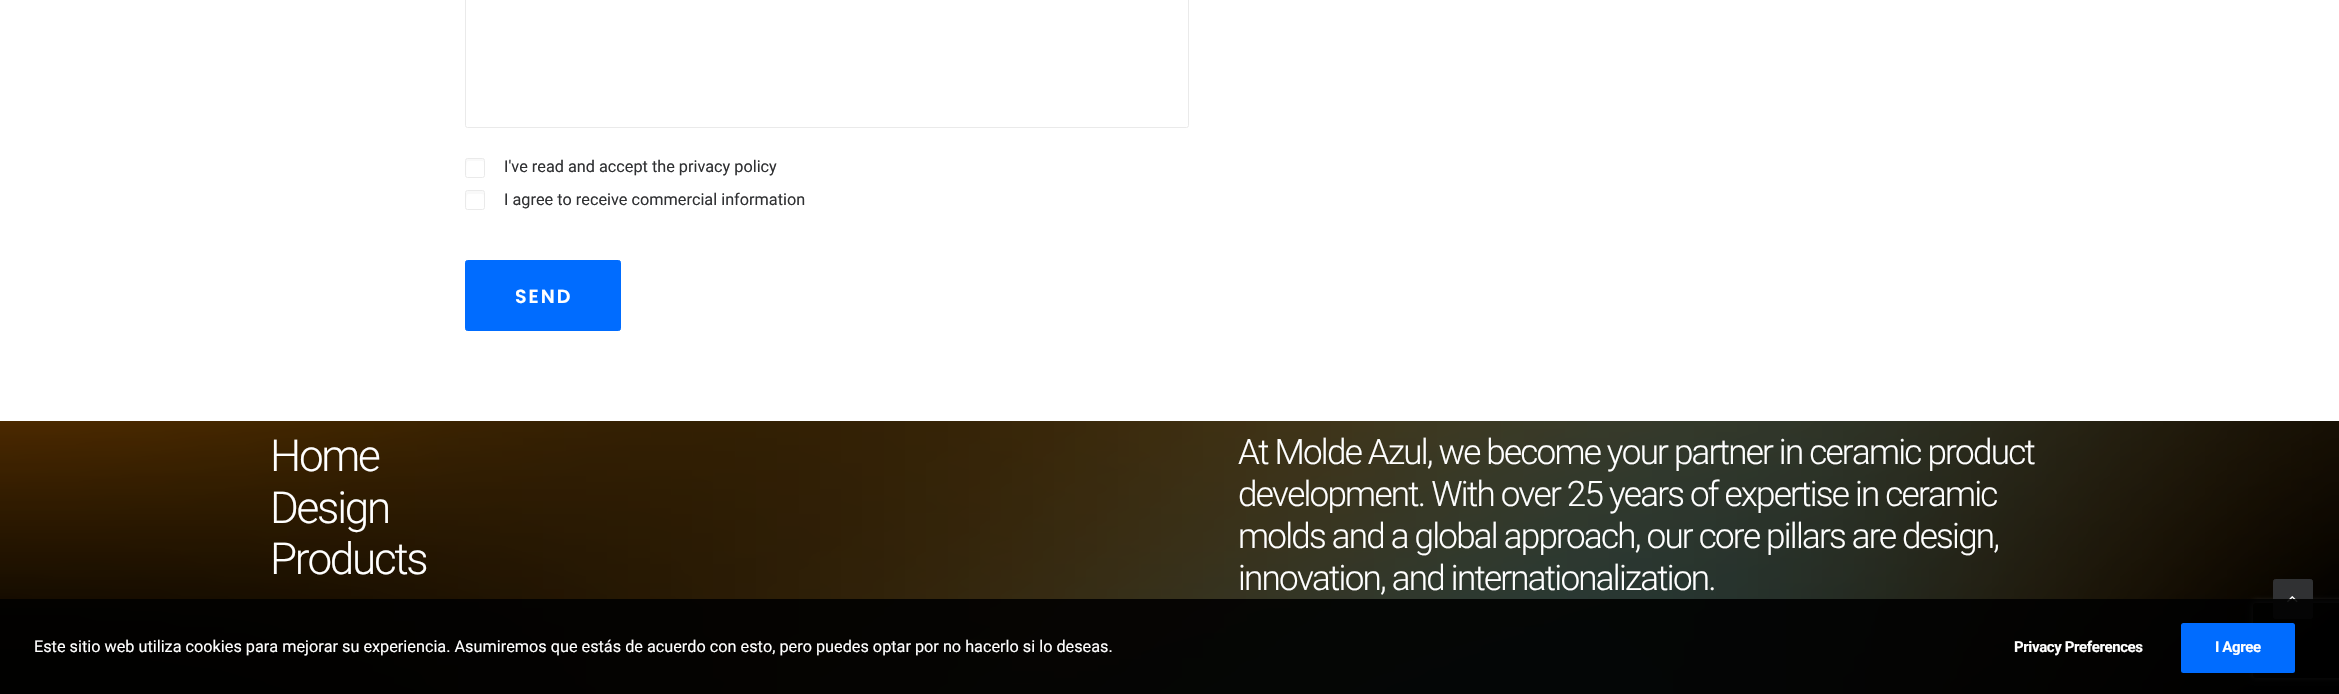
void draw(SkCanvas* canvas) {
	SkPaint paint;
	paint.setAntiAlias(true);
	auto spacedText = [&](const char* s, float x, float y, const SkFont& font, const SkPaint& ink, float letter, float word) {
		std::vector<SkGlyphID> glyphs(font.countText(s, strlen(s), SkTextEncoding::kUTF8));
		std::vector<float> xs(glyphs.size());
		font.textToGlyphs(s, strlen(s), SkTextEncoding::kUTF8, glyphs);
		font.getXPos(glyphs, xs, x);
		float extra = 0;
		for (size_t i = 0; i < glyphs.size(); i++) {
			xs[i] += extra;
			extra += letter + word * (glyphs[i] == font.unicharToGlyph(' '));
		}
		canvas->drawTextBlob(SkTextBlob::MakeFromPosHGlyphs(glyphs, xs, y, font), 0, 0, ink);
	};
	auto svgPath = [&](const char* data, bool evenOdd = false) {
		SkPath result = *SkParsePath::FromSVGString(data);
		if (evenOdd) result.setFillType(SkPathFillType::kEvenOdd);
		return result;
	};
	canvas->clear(0xffffffff);
	paint.setStroke(true);
	paint.setStrokeWidth(1);
	paint.setColor(0xffeaeaea);
	canvas->drawRoundRect(SkRect::MakeXYWH(465.5, -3.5, 723, 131), 2, 2, paint);
	paint.setStroke(false);
	paint.setColor(0xfff9f9f9);
	canvas->drawPath(svgPath("M468 161H480C484 161 484 161 484 165C484 157 485 159 475 159C464 159 466 157 466 167.5C466 169 465.5 175 466.5 175.5C466 173 465.5 161 468 161Z"), paint);
	paint.setStroke(true);
	paint.setColor(0xffeaeaea);
	canvas->drawRoundRect(SkRect::MakeXYWH(465.5, 158.5, 19, 19), 2, 2, paint);
	SkFont f1(fontMgr->matchFamilyStyle("Roboto", SkFontStyle::Normal()), 16.25);
	f1.setSubpixel(true);
	paint.setStroke(false);
	paint.setColor(0xff303133);
	canvas->drawString("I've read and accept the privacy policy", 504, 172, f1, paint);
	paint.setColor(0xfff9f9f9);
	canvas->drawPath(svgPath("M468 194H480C484 194 484 194 484 198C484 189 485.5 191 475 191H469.5C465.5 191 466 190.5 466 194.5V202.5C466 203.5 465.5 208 466.5 209C466 206 465.5 194 468 194Z"), paint);
	paint.setStroke(true);
	paint.setColor(0xffeaeaea);
	canvas->drawRoundRect(SkRect::MakeXYWH(465.5, 190.5, 19, 19), 2, 2, paint);
	paint.setStroke(false);
	paint.setColor(0xff303133);
	canvas->drawString("I agree to receive commercial information", 504, 205, f1, paint);
	paint.setColor(0xff006cff);
	canvas->drawRoundRect(SkRect::MakeXYWH(465.5, 260.5, 155, 70), 2, 2, paint);
	paint.setStroke(true);
	canvas->drawRoundRect(SkRect::MakeXYWH(465.5, 260.5, 155, 70), 2, 2, paint);
	SkFont f2(fontMgr->matchFamilyStyle("Poppins", SkFontStyle(600, SkFontStyle::kNormal_Width, SkFontStyle::kUpright_Slant)), 19);
	f2.setSubpixel(true);
	paint.setStroke(false);
	paint.setColor(0xffffffff);
	spacedText("SEND", 515, 303, f2, paint, 2, 0);
	paint.setColor(0xff000000);
	canvas->drawRect(SkRect::MakeXYWH(0, 421, 2339, 273), paint);
	canvas->drawImageRect(SkImages::DeferredFromEncodedData(SkData::MakeFromFileName("img1.png")), SkRect::MakeXYWH(0, 421, 2339, 273), SkSamplingOptions());
	canvas->save();
	canvas->clipPath(svgPath("M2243 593H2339V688H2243ZM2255.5 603H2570.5C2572 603 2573 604 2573 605.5V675.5C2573 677 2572 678 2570.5 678H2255.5C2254 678 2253 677 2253 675.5V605.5C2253 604 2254 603 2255.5 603Z", true), true);
	paint.setColor(0xff808080);
	paint.setMaskFilter(SkMaskFilter::MakeBlur(kNormal_SkBlurStyle, 3));
	canvas->drawRoundRect(SkRect::MakeXYWH(2253, 603, 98, 75), 2.5, 2.5, paint);
	paint.setMaskFilter(nullptr);
	canvas->restore();
	SkFont f3(fontMgr->matchFamilyStyle("Roboto", SkFontStyle(300, SkFontStyle::kNormal_Width, SkFontStyle::kUpright_Slant)), 44);
	f3.setSubpixel(true);
	paint.setColor(0xffffffff);
	spacedText("Home", 270, 471, f3, paint, -2.25, 0);
	spacedText("Design", 270, 523, f3, paint, -2.25, 0);
	spacedText("Products", 270, 574, f3, paint, -2.25, 0);
	SkFont f4(fontMgr->matchFamilyStyle("Roboto", SkFontStyle(300, SkFontStyle::kNormal_Width, SkFontStyle::kUpright_Slant)), 35);
	f4.setSubpixel(true);
	spacedText("At Molde Azul, we become your partner in ceramic product", 1238, 464, f4, paint, -1.75, 0);
	spacedText("development. With over 25 years of expertise in ceramic", 1238, 506, f4, paint, -1.75, 0);
	spacedText("molds and a global approach, our core pillars are design,", 1238, 548, f4, paint, -1.75, 0);
	spacedText("innovation, and internationalization.", 1238, 590, f4, paint, -1.75, 0);
	paint.setColor(0xff303133);
	canvas->drawRoundRect(SkRect::MakeXYWH(2273.5, 579.5, 39, 39), 2, 2, paint);
	paint.setStroke(true);
	canvas->drawRoundRect(SkRect::MakeXYWH(2273.5, 579.5, 39, 39), 2, 2, paint);
	canvas->drawImageRect(SkImages::DeferredFromEncodedData(SkData::MakeFromFileName("img2.png")), SkRect::MakeXYWH(2287, 596, 11, 7), SkSamplingOptions());
	paint.setStroke(false);
	paint.setColor(0xe6000000);
	canvas->drawRect(SkRect::MakeXYWH(0, 599, 2339, 95), paint);
	paint.setColor(0xffffffff);
	canvas->drawString("Este sitio web utiliza cookies para mejorar su experiencia. Asumiremos que estás de acuerdo con esto, pero puedes optar por no hacerlo si lo deseas.", 34, 652, f1, paint);
	SkFont f5(fontMgr->matchFamilyStyle("Roboto", SkFontStyle::Bold()), 15);
	f5.setSubpixel(true);
	spacedText("Privacy Preferences", 2014, 652, f5, paint, -0.4, 0);
	paint.setColor(0xff006cff);
	canvas->drawRoundRect(SkRect::MakeXYWH(2181, 623, 114, 50), 2.5, 2.5, paint);
	paint.setColor(0xffffffff);
	spacedText("I Agree", 2215, 652, f5, paint, -0.4, 0);
}
